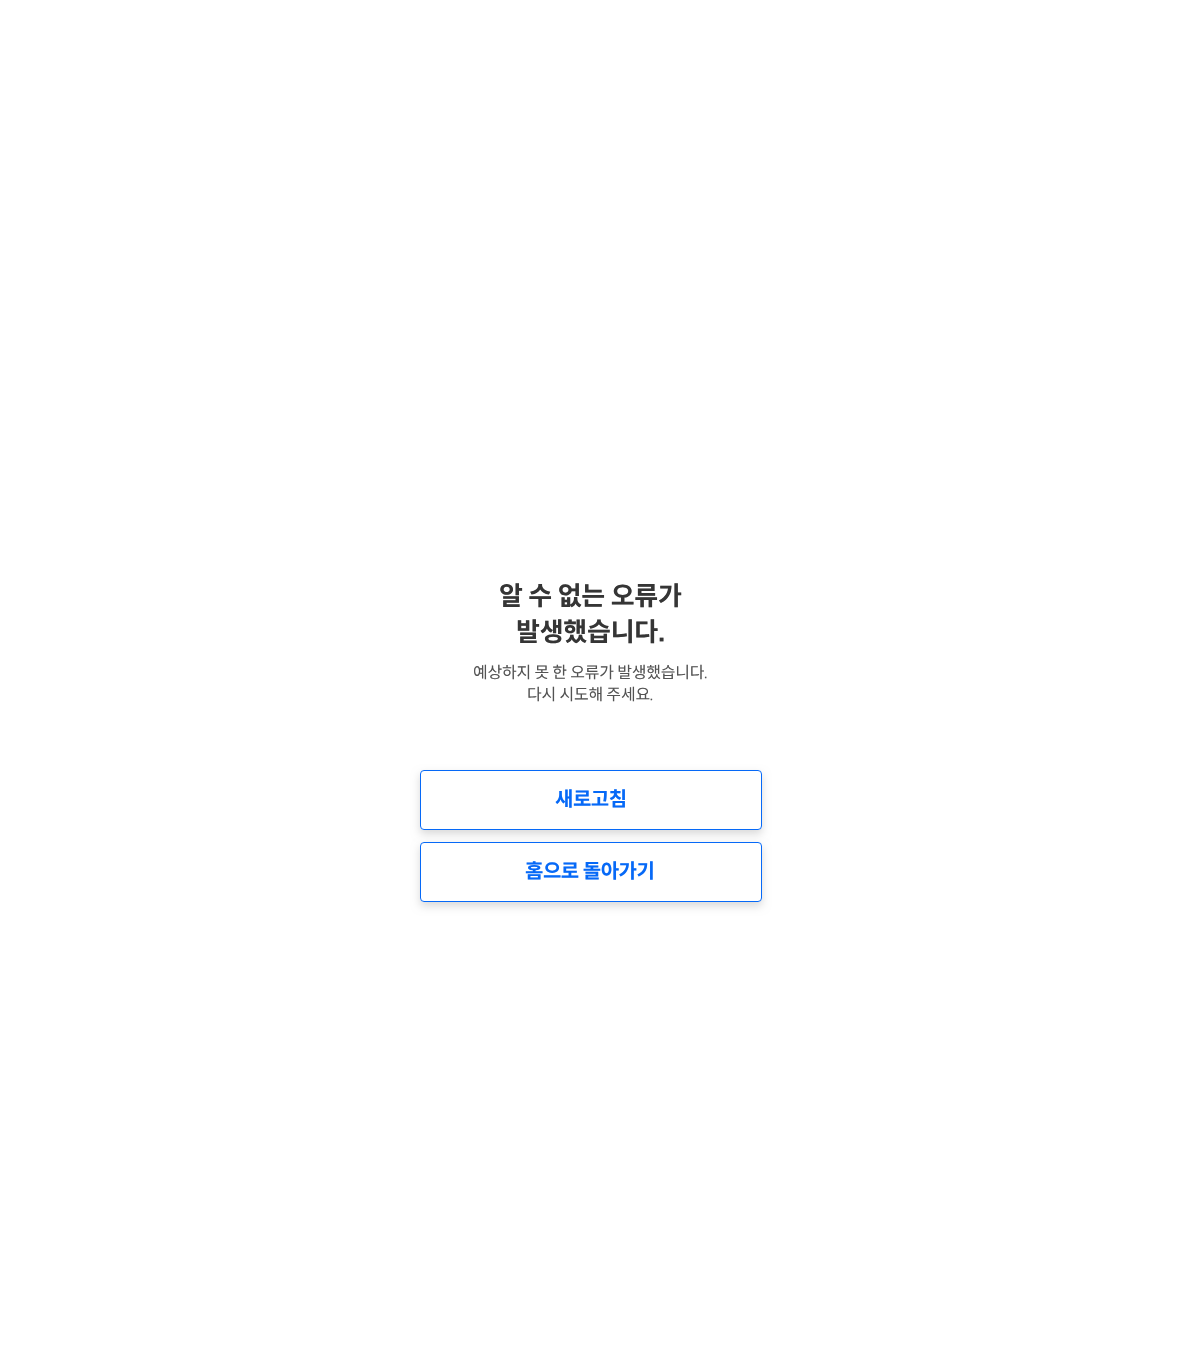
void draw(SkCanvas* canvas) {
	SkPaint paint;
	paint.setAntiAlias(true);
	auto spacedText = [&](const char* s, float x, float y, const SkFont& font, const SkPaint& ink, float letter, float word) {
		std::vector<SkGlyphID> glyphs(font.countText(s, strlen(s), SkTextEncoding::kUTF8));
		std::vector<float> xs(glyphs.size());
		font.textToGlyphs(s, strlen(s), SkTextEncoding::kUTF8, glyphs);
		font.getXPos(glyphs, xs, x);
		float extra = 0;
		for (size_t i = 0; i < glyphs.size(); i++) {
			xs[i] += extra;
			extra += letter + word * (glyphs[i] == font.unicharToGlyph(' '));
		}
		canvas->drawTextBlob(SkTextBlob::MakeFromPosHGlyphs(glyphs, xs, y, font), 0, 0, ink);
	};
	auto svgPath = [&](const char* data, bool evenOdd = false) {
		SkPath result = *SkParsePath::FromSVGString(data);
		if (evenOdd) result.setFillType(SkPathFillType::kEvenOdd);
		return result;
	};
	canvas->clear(0xffffffff);
	SkFont f1(fontMgr->matchFamilyStyle("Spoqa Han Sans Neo", SkFontStyle::Bold()), 26);
	f1.setSubpixel(true);
	paint.setColor(0xff353535);
	spacedText("알 수 없는 오류가", 499, 605, f1, paint, -0.25, 0);
	spacedText("발생했습니다.", 516, 641, f1, paint, -0.25, 0);
	SkFont f2(fontMgr->matchFamilyStyle("Spoqa Han Sans Neo", SkFontStyle::Normal()), 16);
	f2.setSubpixel(true);
	paint.setColor(0xff535353);
	spacedText("예상하지 못 한 오류가 발생했습니다.", 473, 678, f2, paint, -0.2, 0);
	spacedText("다시 시도해 주세요.", 527, 700, f2, paint, -0.2, 0);
	canvas->save();
	canvas->clipPath(svgPath("M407 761H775V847H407ZM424 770H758C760 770 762 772 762 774V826C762 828 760 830 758 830H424C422 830 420 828 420 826V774C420 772 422 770 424 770Z", true), true);
	paint.setColor(0x26000000);
	paint.setMaskFilter(SkMaskFilter::MakeBlur(kNormal_SkBlurStyle, 4));
	canvas->drawRoundRect(SkRect::MakeXYWH(420, 774, 342, 60), 4, 4, paint);
	paint.setMaskFilter(nullptr);
	canvas->restore();
	paint.setStroke(true);
	paint.setStrokeWidth(1);
	paint.setColor(0xff0669f7);
	canvas->drawRoundRect(SkRect::MakeXYWH(420.5, 770.5, 341, 59), 3.5, 3.5, paint);
	SkFont f3(fontMgr->matchFamilyStyle("Spoqa Han Sans Neo", SkFontStyle::Bold()), 20);
	f3.setSubpixel(true);
	paint.setStroke(false);
	spacedText("새로고침", 555, 806, f3, paint, -0.5, 0);
	canvas->save();
	canvas->clipPath(svgPath("M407 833H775V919H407ZM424 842H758C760 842 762 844 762 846V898C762 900 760 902 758 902H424C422 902 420 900 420 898V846C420 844 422 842 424 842Z", true), true);
	paint.setColor(0x26000000);
	paint.setMaskFilter(SkMaskFilter::MakeBlur(kNormal_SkBlurStyle, 4));
	canvas->drawRoundRect(SkRect::MakeXYWH(420, 846, 342, 60), 4, 4, paint);
	paint.setMaskFilter(nullptr);
	canvas->restore();
	paint.setStroke(true);
	paint.setColor(0xff0669f7);
	canvas->drawRoundRect(SkRect::MakeXYWH(420.5, 842.5, 341, 59), 3.5, 3.5, paint);
	paint.setStroke(false);
	spacedText("홈으로 돌아가기", 525, 878, f3, paint, -0.5, 0);
}
